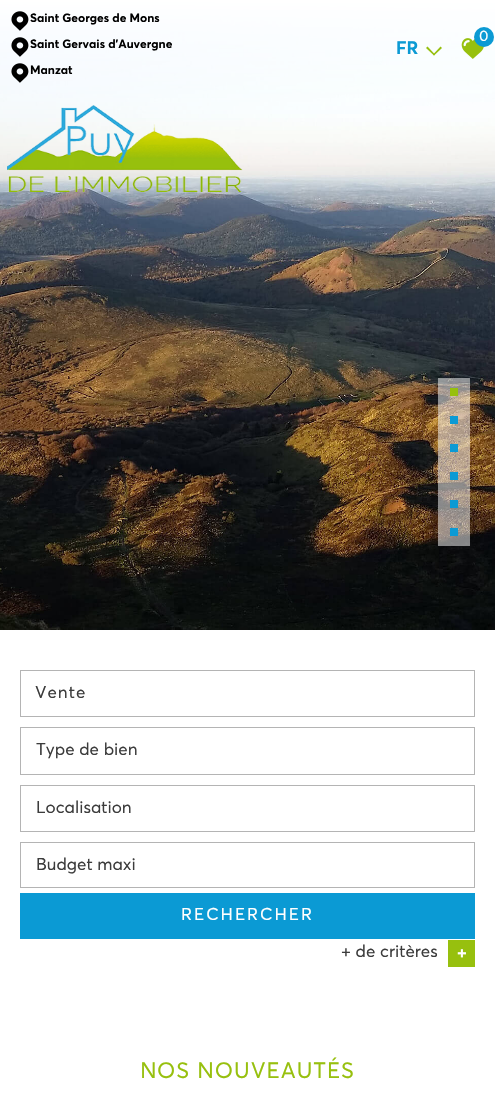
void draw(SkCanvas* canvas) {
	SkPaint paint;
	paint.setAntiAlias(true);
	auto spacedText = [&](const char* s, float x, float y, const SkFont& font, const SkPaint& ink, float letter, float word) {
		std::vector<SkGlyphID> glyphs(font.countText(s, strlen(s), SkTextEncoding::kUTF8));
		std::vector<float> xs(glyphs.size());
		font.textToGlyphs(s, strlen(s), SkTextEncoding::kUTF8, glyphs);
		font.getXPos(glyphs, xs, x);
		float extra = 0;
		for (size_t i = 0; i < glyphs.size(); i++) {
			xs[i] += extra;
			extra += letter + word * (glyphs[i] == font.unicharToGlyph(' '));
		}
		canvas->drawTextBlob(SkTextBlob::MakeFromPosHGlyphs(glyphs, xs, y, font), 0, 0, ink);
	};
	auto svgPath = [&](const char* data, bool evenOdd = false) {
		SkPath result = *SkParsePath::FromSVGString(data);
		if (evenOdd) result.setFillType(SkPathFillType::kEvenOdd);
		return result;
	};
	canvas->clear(0xffffffff);
	canvas->drawImageRect(SkImages::DeferredFromEncodedData(SkData::MakeFromFileName("img6.png")), SkRect::MakeXYWH(0, 0, 495, 630), SkSamplingOptions());
	canvas->drawImageRect(SkImages::DeferredFromEncodedData(SkData::MakeFromFileName("img1.png")), SkRect::MakeXYWH(11, 11, 18, 20), SkSamplingOptions());
	SkFont f1(fontMgr->matchFamilyStyle("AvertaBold", SkFontStyle::Bold()), 12);
	f1.setSubpixel(true);
	paint.setColor(0xff000000);
	canvas->drawString("Saint Georges de Mons", 30, 22, f1, paint);
	canvas->drawImageRect(SkImages::DeferredFromEncodedData(SkData::MakeFromFileName("img2.png")), SkRect::MakeXYWH(11, 37, 18, 20), SkSamplingOptions());
	canvas->drawString("Saint Gervais d'Auvergne", 30, 48, f1, paint);
	canvas->drawImageRect(SkImages::DeferredFromEncodedData(SkData::MakeFromFileName("img3.png")), SkRect::MakeXYWH(11, 63, 18, 20), SkSamplingOptions());
	canvas->drawString("Manzat", 30, 74, f1, paint);
	canvas->drawImageRect(SkImages::DeferredFromEncodedData(SkData::MakeFromFileName("img4.png")), SkRect::MakeXYWH(461, 38, 23, 21), SkSamplingOptions());
	paint.setColor(0xff0b9ad4);
	canvas->drawCircle(484, 37, 10, paint);
	SkFont f2(fontMgr->matchFamilyStyle("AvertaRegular", SkFontStyle::Normal()), 15);
	f2.setSubpixel(true);
	paint.setColor(0xffffffff);
	canvas->drawString("0", 479, 41, f2, paint);
	SkFont f3(fontMgr->matchFamilyStyle("AvertaBold", SkFontStyle::Bold()), 18);
	f3.setSubpixel(true);
	paint.setColor(0xff0b9ad4);
	canvas->drawString("FR", 396, 54, f3, paint);
	paint.setColor(0xff97c00e);
	canvas->drawPath(svgPath("M427.5 46.5L435 54.5L434 55.5L426 48Z"), paint);
	canvas->drawPath(svgPath("M433 54.5L440.5 46.5L442 48L434 55.5Z"), paint);
	canvas->drawImageRect(SkImages::DeferredFromEncodedData(SkData::MakeFromFileName("img5.png")), SkRect::MakeXYWH(7, 105, 236, 87), SkSamplingOptions());
	paint.setColor(0x80ffffff);
	canvas->drawRect(SkRect::MakeXYWH(438, 378, 32, 168), paint);
	paint.setColor(0xff97c00e);
	canvas->drawRect(SkRect::MakeXYWH(450, 388, 8, 8), paint);
	paint.setColor(0xff0b9ad4);
	canvas->drawRect(SkRect::MakeXYWH(450, 416, 8, 8), paint);
	canvas->drawRect(SkRect::MakeXYWH(450, 444, 8, 8), paint);
	canvas->drawRect(SkRect::MakeXYWH(450, 472, 8, 8), paint);
	canvas->drawRect(SkRect::MakeXYWH(450, 500, 8, 8), paint);
	canvas->drawRect(SkRect::MakeXYWH(450, 528, 8, 8), paint);
	paint.setStroke(true);
	paint.setStrokeWidth(1);
	paint.setColor(0xffb4b4b4);
	canvas->drawRect(SkRect::MakeXYWH(20.5, 670.5, 454, 46), paint);
	SkFont f4(fontMgr->matchFamilyStyle("AvertaRegular", SkFontStyle::Normal()), 17);
	f4.setSubpixel(true);
	paint.setStroke(false);
	paint.setColor(0xff3c3c3c);
	spacedText("Vente", 35, 698, f4, paint, 1, 0);
	paint.setStroke(true);
	paint.setColor(0xffb4b4b4);
	canvas->drawRect(SkRect::MakeXYWH(20.5, 727.5, 454, 47), paint);
	paint.setStroke(false);
	paint.setColor(0xff3c3c3c);
	canvas->drawString("Type de bien", 36, 755, f4, paint);
	paint.setStroke(true);
	paint.setColor(0xffb4b4b4);
	canvas->drawRect(SkRect::MakeXYWH(20.5, 785.5, 454, 46), paint);
	paint.setStroke(false);
	paint.setColor(0xff3c3c3c);
	canvas->drawString("Localisation", 36, 813, f4, paint);
	paint.setStroke(true);
	paint.setColor(0xffb4b4b4);
	canvas->drawRect(SkRect::MakeXYWH(20.5, 842.5, 454, 45), paint);
	paint.setStroke(false);
	paint.setColor(0xff3c3c3c);
	canvas->drawString("Budget maxi", 36, 870, f4, paint);
	paint.setColor(0xff0b9ad4);
	canvas->drawRect(SkRect::MakeXYWH(20, 893, 455, 46), paint);
	paint.setColor(0xffffffff);
	spacedText("RECHERCHER", 181, 920, f4, paint, 2, 0);
	paint.setColor(0xff3c3c3c);
	canvas->drawString("+ de critères", 341, 957, f4, paint);
	paint.setColor(0xff97c00e);
	canvas->drawRect(SkRect::MakeXYWH(448, 940, 27, 27), paint);
	SkFont f5(fontMgr->matchFamilyStyle("AvertaBold", SkFontStyle::Bold()), 17);
	f5.setSubpixel(true);
	paint.setColor(0xffffffff);
	canvas->drawString("+", 457, 958, f5, paint);
	SkFont f6(fontMgr->matchFamilyStyle("Noto Sans", SkFontStyle::Normal()), 22);
	f6.setSubpixel(true);
	paint.setColor(0xff97c00e);
	spacedText("N", 140, 1078, f6, paint, 1, 0);
	SkFont f7(fontMgr->matchFamilyStyle("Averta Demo", SkFontStyle::Normal()), 22);
	f7.setSubpixel(true);
	spacedText("OS NOUVEAUTÉS", 157, 1078, f7, paint, 1, 0);
}
